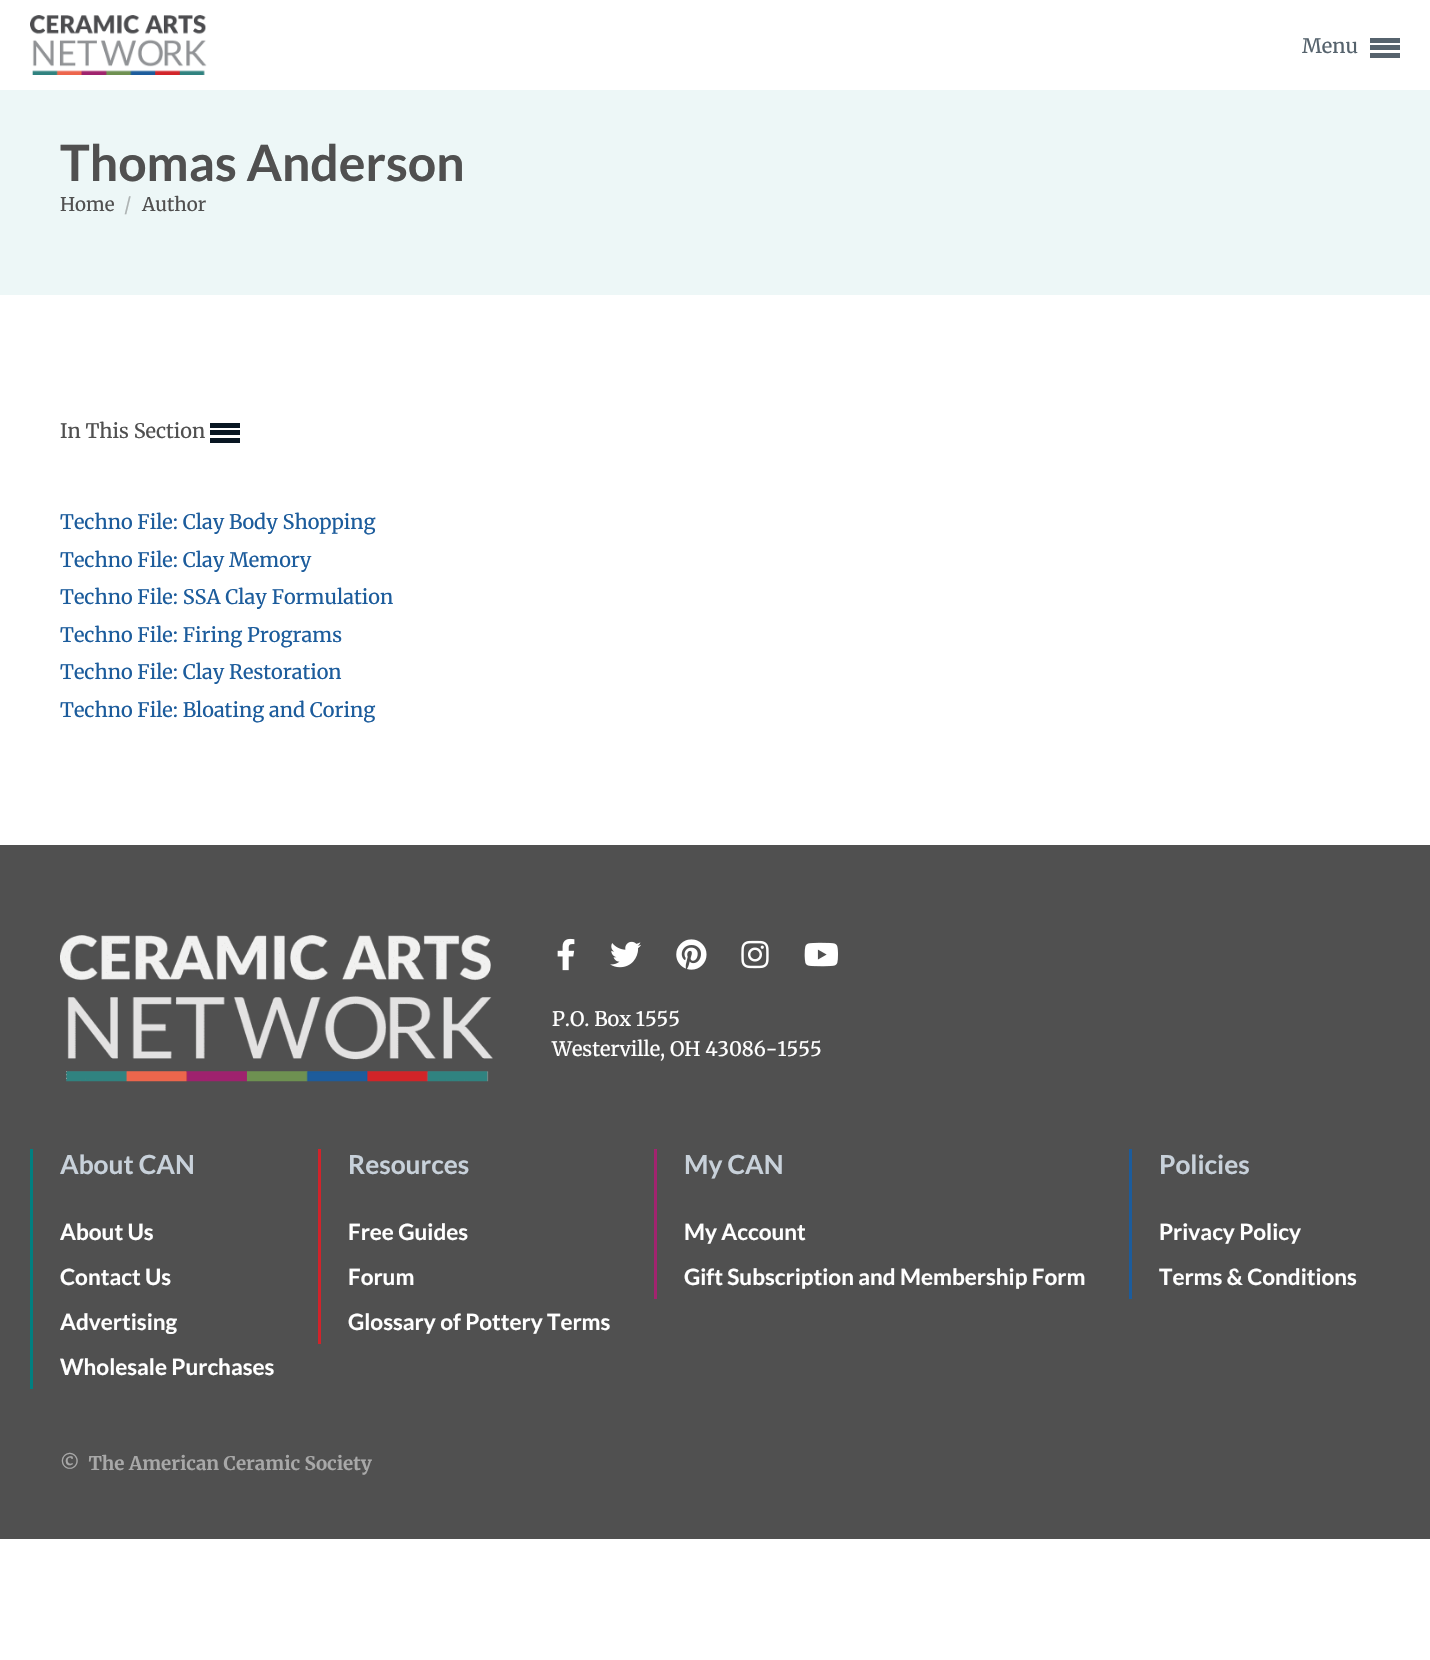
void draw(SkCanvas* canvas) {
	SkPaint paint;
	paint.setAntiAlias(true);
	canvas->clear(0xffffffff);
	canvas->drawImageRect(SkImages::DeferredFromEncodedData(SkData::MakeFromFileName("img1.png")), SkRect::MakeXYWH(30, 15, 177, 60), SkSamplingOptions());
	SkFont f1(fontMgr->matchFamilyStyle("Merriweather", SkFontStyle::Normal()), 20);
	f1.setSubpixel(true);
	paint.setColor(0xff56636d);
	canvas->drawString("Menu", 1302, 53, f1, paint);
	canvas->drawRect(SkRect::MakeXYWH(1370, 38, 30, 5), paint);
	canvas->drawRect(SkRect::MakeXYWH(1370, 45, 30, 5), paint);
	canvas->drawRect(SkRect::MakeXYWH(1370, 53, 30, 5), paint);
	paint.setColor(0xffedf7f7);
	canvas->drawRect(SkRect::MakeXYWH(0, 90, 1430, 205), paint);
	SkFont f2(fontMgr->matchFamilyStyle("Lato", SkFontStyle::Bold()), 50);
	f2.setSubpixel(true);
	paint.setColor(0xff505050);
	canvas->drawString("Thomas Anderson", 60, 181, f2, paint);
	SkFont f3(fontMgr->matchFamilyStyle("Merriweather", SkFontStyle::Normal()), 18.75);
	f3.setSubpixel(true);
	canvas->drawString("Home", 60, 211, f3, paint);
	paint.setColor(0xffaeb4b4);
	canvas->drawString("/", 124, 211, f3, paint);
	paint.setColor(0xff505050);
	canvas->drawString("Author", 142, 211, f3, paint);
	canvas->drawString("In This Section", 60, 438, f1, paint);
	paint.setColor(0xff081622);
	canvas->drawRect(SkRect::MakeXYWH(210, 423, 30, 5), paint);
	canvas->drawRect(SkRect::MakeXYWH(210, 430, 30, 5), paint);
	canvas->drawRect(SkRect::MakeXYWH(210, 438, 30, 5), paint);
	paint.setColor(0xff1c5c9c);
	canvas->drawString("Techno File: Clay Body Shopping", 60, 529, f1, paint);
	canvas->drawString("Techno File: Clay Memory", 60, 567, f1, paint);
	canvas->drawString("Techno File: SSA Clay Formulation", 60, 604, f1, paint);
	canvas->drawString("Techno File: Firing Programs", 60, 642, f1, paint);
	canvas->drawString("Techno File: Clay Restoration", 60, 679, f1, paint);
	canvas->drawString("Techno File: Bloating and Coring", 60, 717, f1, paint);
	paint.setColor(0xff505050);
	canvas->drawRect(SkRect::MakeXYWH(0, 845, 1430, 694), paint);
	canvas->drawImageRect(SkImages::DeferredFromEncodedData(SkData::MakeFromFileName("img2.png")), SkRect::MakeXYWH(60, 935, 433, 147), SkSamplingOptions());
	canvas->drawImageRect(SkImages::DeferredFromEncodedData(SkData::MakeFromFileName("img3.png")), SkRect::MakeXYWH(557, 938, 18, 33), SkSamplingOptions());
	canvas->drawImageRect(SkImages::DeferredFromEncodedData(SkData::MakeFromFileName("img4.png")), SkRect::MakeXYWH(610, 941, 31, 27), SkSamplingOptions());
	canvas->drawImageRect(SkImages::DeferredFromEncodedData(SkData::MakeFromFileName("img5.png")), SkRect::MakeXYWH(676, 939, 31, 31), SkSamplingOptions());
	canvas->drawImageRect(SkImages::DeferredFromEncodedData(SkData::MakeFromFileName("img6.png")), SkRect::MakeXYWH(741, 940, 28, 29), SkSamplingOptions());
	canvas->drawImageRect(SkImages::DeferredFromEncodedData(SkData::MakeFromFileName("img7.png")), SkRect::MakeXYWH(804, 942, 34, 25), SkSamplingOptions());
	paint.setColor(0xffffffff);
	canvas->drawString("P.O. Box 1555", 552, 1026, f1, paint);
	canvas->drawString("Westerville, OH 43086-1555", 552, 1056, f1, paint);
	paint.setColor(0xff007f80);
	canvas->drawRect(SkRect::MakeXYWH(30, 1149, 3, 240), paint);
	SkFont f4(fontMgr->matchFamilyStyle("Lato", SkFontStyle::Bold()), 26.25);
	f4.setSubpixel(true);
	paint.setColor(0xffc8d1da);
	canvas->drawString("About CAN", 60, 1174, f4, paint);
	SkFont f5(fontMgr->matchFamilyStyle("Lato", SkFontStyle::Bold()), 22.5);
	f5.setSubpixel(true);
	paint.setColor(0xffffffff);
	canvas->drawString("About Us", 60, 1240, f5, paint);
	canvas->drawString("Contact Us", 60, 1285, f5, paint);
	canvas->drawString("Advertising", 60, 1330, f5, paint);
	canvas->drawString("Wholesale Purchases", 60, 1375, f5, paint);
	paint.setColor(0xffd2232a);
	canvas->drawRect(SkRect::MakeXYWH(318, 1149, 3, 195), paint);
	paint.setColor(0xffc8d1da);
	canvas->drawString("Resources", 348, 1174, f4, paint);
	paint.setColor(0xffffffff);
	canvas->drawString("Free Guides", 348, 1240, f5, paint);
	canvas->drawString("Forum", 348, 1285, f5, paint);
	canvas->drawString("Glossary of Pottery Terms", 348, 1330, f5, paint);
	paint.setColor(0xffa2236f);
	canvas->drawRect(SkRect::MakeXYWH(654, 1149, 3, 150), paint);
	paint.setColor(0xffc8d1da);
	canvas->drawString("My CAN", 684, 1174, f4, paint);
	paint.setColor(0xffffffff);
	canvas->drawString("My Account", 684, 1240, f5, paint);
	canvas->drawString("Gift Subscription and Membership Form", 684, 1285, f5, paint);
	paint.setColor(0xff1c5c9c);
	canvas->drawRect(SkRect::MakeXYWH(1129, 1149, 3, 150), paint);
	paint.setColor(0xffc8d1da);
	canvas->drawString("Policies", 1159, 1174, f4, paint);
	paint.setColor(0xffffffff);
	canvas->drawString("Privacy Policy", 1159, 1240, f5, paint);
	canvas->drawString("Terms & Conditions", 1159, 1285, f5, paint);
	SkFont f6(fontMgr->matchFamilyStyle("Merriweather", SkFontStyle::Bold()), 18.75);
	f6.setSubpixel(true);
	paint.setColor(0xffa8a8a8);
	canvas->drawString("©  The American Ceramic Society", 60, 1470, f6, paint);
}
